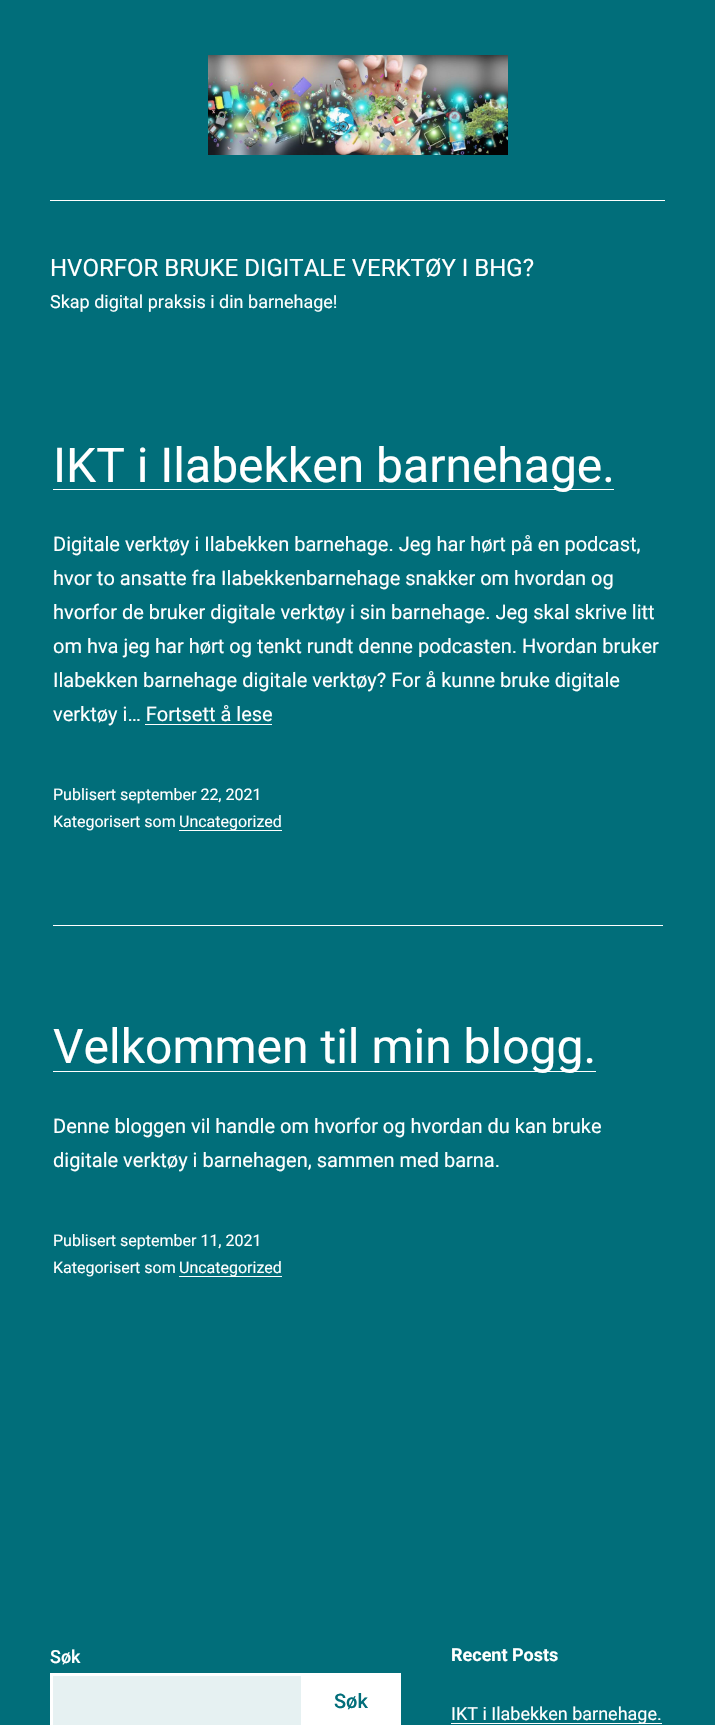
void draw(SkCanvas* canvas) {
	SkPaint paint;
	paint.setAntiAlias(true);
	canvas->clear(0xff016e7a);
	paint.setColor(0xffffffff);
	canvas->drawRect(SkRect::MakeXYWH(50, 200, 615, 1), paint);
	canvas->drawImageRect(SkImages::DeferredFromEncodedData(SkData::MakeFromFileName("img1.png")), SkRect::MakeXYWH(208, 55, 300, 100), SkSamplingOptions());
	SkFont f1(fontMgr->matchFamilyStyle("Roboto", SkFontStyle::Normal()), 24);
	f1.setSubpixel(true);
	canvas->drawString("HVORFOR BRUKE DIGITALE VERKTØY I BHG?", 50, 276, f1, paint);
	SkFont f2(fontMgr->matchFamilyStyle("Roboto", SkFontStyle::Normal()), 18);
	f2.setSubpixel(true);
	canvas->drawString("Skap digital praksis i din barnehage!", 50, 308, f2, paint);
	canvas->drawRect(SkRect::MakeXYWH(53, 489, 561, 1), paint);
	SkFont f3(fontMgr->matchFamilyStyle("Roboto", SkFontStyle::Normal()), 48);
	f3.setSubpixel(true);
	canvas->drawString("IKT i Ilabekken barnehage.", 53, 482, f3, paint);
	SkFont f4(fontMgr->matchFamilyStyle("Roboto", SkFontStyle::Normal()), 20);
	f4.setSubpixel(true);
	canvas->drawString("Digitale verktøy i Ilabekken barnehage. Jeg har hørt på en podcast,", 53, 551, f4, paint);
	canvas->drawString("hvor to ansatte fra Ilabekkenbarnehage snakker om hvordan og", 53, 585, f4, paint);
	canvas->drawString("hvorfor de bruker digitale verktøy i sin barnehage. Jeg skal skrive litt", 53, 619, f4, paint);
	canvas->drawString("om hva jeg har hørt og tenkt rundt denne podcasten. Hvordan bruker", 53, 653, f4, paint);
	canvas->drawString("Ilabekken barnehage digitale verktøy? For å kunne bruke digitale", 53, 687, f4, paint);
	canvas->drawString("verktøy i… Fortsett å lese", 53, 721, f4, paint);
	canvas->drawRect(SkRect::MakeXYWH(145, 724, 127, 1), paint);
	canvas->drawRect(SkRect::MakeXYWH(53, 925, 610, 1), paint);
	SkFont f5(fontMgr->matchFamilyStyle("Roboto", SkFontStyle::Normal()), 16);
	f5.setSubpixel(true);
	canvas->drawString("Publisert september 22, 2021", 53, 800, f5, paint);
	canvas->drawString("Kategorisert som", 53, 827, f5, paint);
	canvas->drawRect(SkRect::MakeXYWH(179, 830, 103, 1), paint);
	canvas->drawString("Uncategorized", 179, 827, f5, paint);
	canvas->drawRect(SkRect::MakeXYWH(53, 1071, 543, 1), paint);
	canvas->drawString("Velkommen til min blogg.", 53, 1063, f3, paint);
	canvas->drawString("Denne bloggen vil handle om hvorfor og hvordan du kan bruke", 53, 1133, f4, paint);
	canvas->drawString("digitale verktøy i barnehagen, sammen med barna.", 53, 1167, f4, paint);
	canvas->drawString("Publisert september 11, 2021", 53, 1246, f5, paint);
	canvas->drawString("Kategorisert som", 53, 1273, f5, paint);
	canvas->drawRect(SkRect::MakeXYWH(179, 1276, 103, 1), paint);
	canvas->drawString("Uncategorized", 179, 1273, f5, paint);
	SkFont f6(fontMgr->matchFamilyStyle("Roboto", SkFontStyle(500, SkFontStyle::kNormal_Width, SkFontStyle::kUpright_Slant)), 18);
	f6.setSubpixel(true);
	canvas->drawString("Søk", 50, 1663, f6, paint);
	paint.setColor(0xffe6f1f2);
	canvas->drawRect(SkRect::MakeXYWH(51.5, 1674.5, 251, 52), paint);
	paint.setStroke(true);
	paint.setStrokeWidth(3);
	paint.setColor(0xffffffff);
	canvas->drawRect(SkRect::MakeXYWH(51.5, 1674.5, 251, 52), paint);
	paint.setStroke(false);
	canvas->drawRect(SkRect::MakeXYWH(304, 1673, 97, 52), paint);
	SkFont f7(fontMgr->matchFamilyStyle("Roboto", SkFontStyle(500, SkFontStyle::kNormal_Width, SkFontStyle::kUpright_Slant)), 20);
	f7.setSubpixel(true);
	paint.setColor(0xff016e7a);
	canvas->drawString("Søk", 334, 1708, f7, paint);
	SkFont f8(fontMgr->matchFamilyStyle("Roboto", SkFontStyle::Bold()), 18);
	f8.setSubpixel(true);
	paint.setColor(0xffffffff);
	canvas->drawString("Recent Posts", 451, 1661, f8, paint);
	canvas->drawRect(SkRect::MakeXYWH(451, 1723, 211, 1), paint);
	canvas->drawString("IKT i Ilabekken barnehage.", 451, 1720, f2, paint);
}
